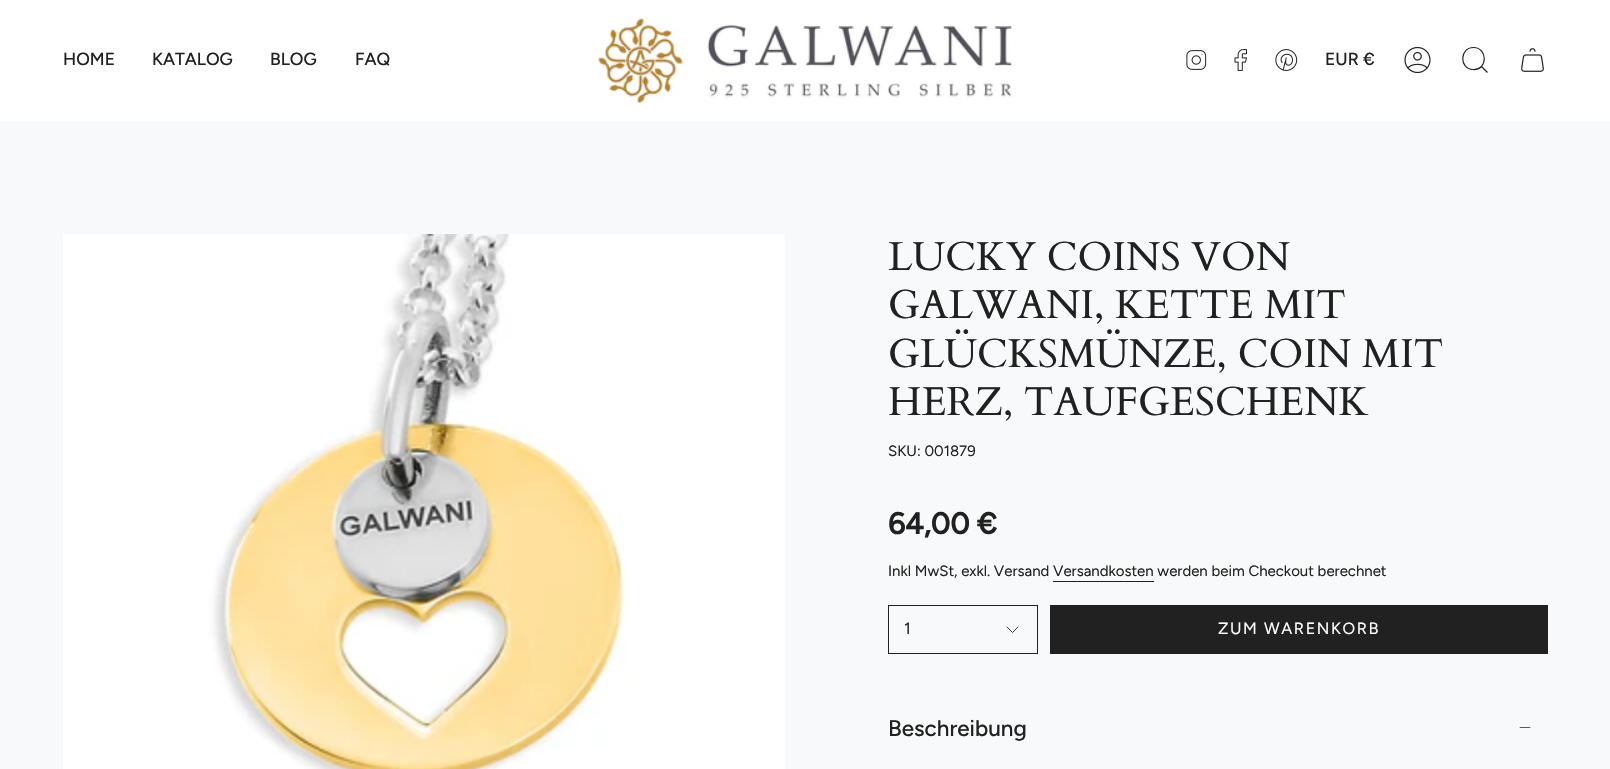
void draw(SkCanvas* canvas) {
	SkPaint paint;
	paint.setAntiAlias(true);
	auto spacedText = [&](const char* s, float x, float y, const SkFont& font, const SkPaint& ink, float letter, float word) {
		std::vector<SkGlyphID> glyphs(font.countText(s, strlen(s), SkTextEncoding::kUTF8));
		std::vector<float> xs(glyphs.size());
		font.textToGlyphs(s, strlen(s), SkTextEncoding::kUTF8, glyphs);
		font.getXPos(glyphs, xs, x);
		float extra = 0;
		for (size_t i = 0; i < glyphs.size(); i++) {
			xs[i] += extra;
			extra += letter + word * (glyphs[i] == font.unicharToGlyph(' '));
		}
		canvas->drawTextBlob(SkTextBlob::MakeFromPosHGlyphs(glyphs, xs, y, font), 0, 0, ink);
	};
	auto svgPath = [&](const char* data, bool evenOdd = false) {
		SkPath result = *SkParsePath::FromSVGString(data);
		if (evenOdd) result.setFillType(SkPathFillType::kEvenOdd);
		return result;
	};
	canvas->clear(0xfff7f9fa);
	paint.setColor(0xffffffff);
	canvas->drawRect(SkRect::MakeXYWH(0, 0, 1610, 121), paint);
	SkFont f1(fontMgr->matchFamilyStyle("Figtree", SkFontStyle(500, SkFontStyle::kNormal_Width, SkFontStyle::kUpright_Slant)), 17.5);
	f1.setSubpixel(true);
	paint.setColor(0xff212121);
	canvas->drawString("HOME", 63, 65, f1, paint);
	canvas->drawString("KATALOG", 152, 65, f1, paint);
	canvas->drawString("BLOG", 270, 65, f1, paint);
	canvas->drawString("FAQ", 355, 65, f1, paint);
	canvas->drawImageRect(SkImages::DeferredFromEncodedData(SkData::MakeFromFileName("img1.png")), SkRect::MakeXYWH(598, 18, 414, 85), SkSamplingOptions());
	canvas->drawImageRect(SkImages::DeferredFromEncodedData(SkData::MakeFromFileName("img2.png")), SkRect::MakeXYWH(1186, 50, 21, 20), SkSamplingOptions());
	canvas->drawImageRect(SkImages::DeferredFromEncodedData(SkData::MakeFromFileName("img3.png")), SkRect::MakeXYWH(1234, 49, 13, 22), SkSamplingOptions());
	canvas->drawImageRect(SkImages::DeferredFromEncodedData(SkData::MakeFromFileName("img4.png")), SkRect::MakeXYWH(1275, 49, 23, 22), SkSamplingOptions());
	canvas->drawString("EUR €", 1325, 65, f1, paint);
	canvas->drawImageRect(SkImages::DeferredFromEncodedData(SkData::MakeFromFileName("img5.png")), SkRect::MakeXYWH(1404, 46, 27, 28), SkSamplingOptions());
	paint.setStroke(true);
	paint.setStrokeWidth(1.2);
	canvas->drawPath(svgPath("M1473.5 47.5C1488 47.5 1488 70.5 1473 69.5C1459 69 1459.5 47.5 1473.5 47.5ZM1481.5 66.5L1487.5 72.5"), paint);
	canvas->drawImageRect(SkImages::DeferredFromEncodedData(SkData::MakeFromFileName("img6.png")), SkRect::MakeXYWH(1521, 48, 23, 24), SkSamplingOptions());
	canvas->drawImageRect(SkImages::DeferredFromEncodedData(SkData::MakeFromFileName("img7.png")), SkRect::MakeXYWH(63, 234, 722, 535), SkSamplingOptions());
	SkFont f2(fontMgr->matchFamilyStyle("Cardo", SkFontStyle::Normal()), 40.25);
	f2.setSubpixel(true);
	paint.setStroke(false);
	canvas->drawString("LUCKY COINS VON", 888, 270, f2, paint);
	canvas->drawString("GALWANI, KETTE MIT", 888, 318, f2, paint);
	canvas->drawString("GLÜCKSMÜNZE, COIN MIT", 888, 367, f2, paint);
	canvas->drawString("HERZ, TAUFGESCHENK", 888, 415, f2, paint);
	SkFont f3(fontMgr->matchFamilyStyle("Figtree", SkFontStyle::Normal()), 15);
	f3.setSubpixel(true);
	canvas->drawString("SKU: 001879", 888, 456, f3, paint);
	SkFont f4(fontMgr->matchFamilyStyle("Figtree", SkFontStyle::Bold()), 30);
	f4.setSubpixel(true);
	canvas->drawString("64,00 €", 888, 534, f4, paint);
	canvas->drawString("Inkl MwSt, exkl. Versand Versandkosten werden beim Checkout berechnet", 888, 576, f3, paint);
	canvas->drawRect(SkRect::MakeXYWH(1053, 581, 101, 1), paint);
	paint.setStroke(true);
	paint.setStrokeWidth(1);
	canvas->drawRect(SkRect::MakeXYWH(888.5, 605.5, 149, 48), paint);
	SkFont f5(fontMgr->matchFamilyStyle("Figtree", SkFontStyle::Normal()), 16.25);
	f5.setSubpixel(true);
	paint.setStroke(false);
	canvas->drawString("1", 904, 634, f5, paint);
	paint.setStroke(true);
	paint.setStrokeWidth(0.9);
	paint.setStrokeCap(SkPaint::kRound_Cap);
	paint.setStrokeJoin(SkPaint::kRound_Join);
	canvas->drawPath(svgPath("M1007 627L1012.5 632.5L1018 627"), paint);
	paint.setStroke(false);
	canvas->drawRect(SkRect::MakeXYWH(1050, 605, 498, 49), paint);
	paint.setColor(0xffffffff);
	spacedText("ZUM WARENKORB", 1218, 634, f5, paint, 1.6, 0);
	SkFont f6(fontMgr->matchFamilyStyle("Figtree", SkFontStyle(500, SkFontStyle::kNormal_Width, SkFontStyle::kUpright_Slant)), 22.5);
	f6.setSubpixel(true);
	paint.setColor(0xff212121);
	canvas->drawString("Beschreibung", 888, 736, f6, paint);
	canvas->drawImageRect(SkImages::DeferredFromEncodedData(SkData::MakeFromFileName("img8.png")), SkRect::MakeXYWH(1519, 727, 12, 1), SkSamplingOptions());
}
